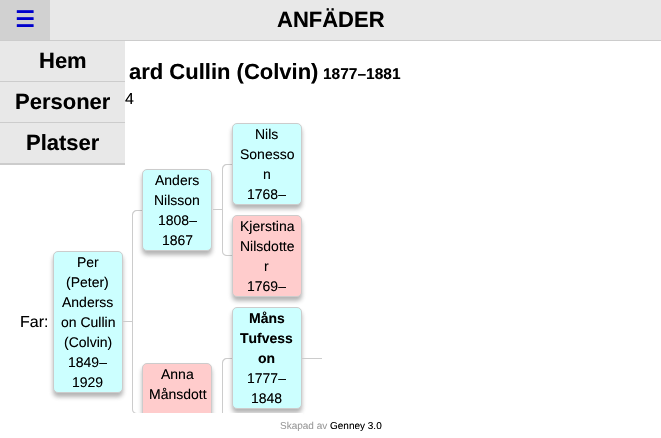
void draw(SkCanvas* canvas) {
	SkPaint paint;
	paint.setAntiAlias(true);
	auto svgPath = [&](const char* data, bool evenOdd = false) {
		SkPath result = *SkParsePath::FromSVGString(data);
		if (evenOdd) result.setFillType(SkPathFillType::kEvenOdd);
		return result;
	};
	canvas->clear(0xffffffff);
	paint.setColor(0xffe8e8e8);
	canvas->drawRect(SkRect::MakeXYWH(50, 0, 611, 40), paint);
	paint.setColor(0xffcccccc);
	canvas->drawRect(SkRect::MakeXYWH(0, 40, 661, 1), paint);
	paint.setColor(0xffd1d1d1);
	canvas->drawRect(SkRect::MakeXYWH(0, 0, 50, 40), paint);
	SkFont f1(fontMgr->matchFamilyStyle("DejaVu Sans", SkFontStyle::Bold()), 22);
	f1.setSubpixel(true);
	paint.setColor(0xff0000cc);
	canvas->drawString("☰", 15, 27, f1, paint);
	paint.setColor(0xffe8e8e8);
	canvas->drawRect(SkRect::MakeXYWH(0, 41, 125, 122), paint);
	paint.setColor(0xffcccccc);
	canvas->drawRect(SkRect::MakeXYWH(0, 163, 125, 2), paint);
	canvas->drawRect(SkRect::MakeXYWH(0, 81, 125, 1), paint);
	SkFont f2(fontMgr->matchFamilyStyle("Liberation Sans", SkFontStyle::Bold()), 22);
	f2.setSubpixel(true);
	paint.setColor(0xff000000);
	canvas->drawString("Hem", 39, 68, f2, paint);
	paint.setColor(0xffcccccc);
	canvas->drawRect(SkRect::MakeXYWH(0, 122, 125, 1), paint);
	paint.setColor(0xff000000);
	canvas->drawString("Personer", 15, 109, f2, paint);
	canvas->drawString("Platser", 26, 150, f2, paint);
	canvas->drawString("ANFÄDER", 277, 27, f2, paint);
	canvas->drawString("ard Cullin (Colvin)", 129, 79, f2, paint);
	SkFont f3(fontMgr->matchFamilyStyle("Liberation Sans", SkFontStyle::Bold()), 15.5);
	f3.setSubpixel(true);
	canvas->drawString("1877–1881", 323, 79, f3, paint);
	SkFont f4(fontMgr->matchFamilyStyle("Liberation Sans", SkFontStyle::Normal()), 16);
	f4.setSubpixel(true);
	canvas->drawString("4", 125, 104, f4, paint);
	canvas->drawString("Far:", 20, 327, f4, paint);
	paint.setColor(0x66434343);
	paint.setMaskFilter(SkMaskFilter::MakeBlur(kNormal_SkBlurStyle, 2));
	canvas->drawRoundRect(SkRect::MakeXYWH(53, 255, 70, 142), 5, 5, paint);
	paint.setMaskFilter(nullptr);
	paint.setColor(0xffccffff);
	canvas->drawRoundRect(SkRect::MakeXYWH(53.5, 251.5, 69, 141), 4.5, 4.5, paint);
	paint.setStroke(true);
	paint.setStrokeWidth(1);
	paint.setColor(0xffcccccc);
	canvas->drawRoundRect(SkRect::MakeXYWH(53.5, 251.5, 69, 141), 4.5, 4.5, paint);
	SkFont f5(fontMgr->matchFamilyStyle("Liberation Sans", SkFontStyle::Normal()), 14);
	f5.setSubpixel(true);
	paint.setStroke(false);
	paint.setColor(0xff000000);
	canvas->drawString("Per", 77, 267, f5, paint);
	canvas->drawString("(Peter)", 66, 287, f5, paint);
	canvas->drawString("Anderss", 62, 307, f5, paint);
	canvas->drawString("on Cullin", 61, 327, f5, paint);
	canvas->drawString("(Colvin)", 64, 347, f5, paint);
	canvas->drawString("1849–", 68, 367, f5, paint);
	canvas->drawString("1929", 72, 387, f5, paint);
	paint.setColor(0xffcccccc);
	canvas->drawPath(svgPath("M137 210H142V321H132V215C132 212 134 210 137 210ZM137 211H142V321H133V215C133 213 135 211 137 211Z", true), paint);
	paint.setColor(0x66434343);
	paint.setMaskFilter(SkMaskFilter::MakeBlur(kNormal_SkBlurStyle, 2));
	canvas->drawRoundRect(SkRect::MakeXYWH(142, 173, 70, 82), 5, 5, paint);
	paint.setMaskFilter(nullptr);
	paint.setColor(0xffccffff);
	canvas->drawRoundRect(SkRect::MakeXYWH(142.5, 169.5, 69, 81), 4.5, 4.5, paint);
	paint.setStroke(true);
	paint.setColor(0xffcccccc);
	canvas->drawRoundRect(SkRect::MakeXYWH(142.5, 169.5, 69, 81), 4.5, 4.5, paint);
	paint.setStroke(false);
	paint.setColor(0xff000000);
	canvas->drawString("Anders", 155, 185, f5, paint);
	canvas->drawString("Nilsson", 154, 205, f5, paint);
	canvas->drawString("1808–", 158, 225, f5, paint);
	canvas->drawString("1867", 162, 245, f5, paint);
	paint.setColor(0xffcccccc);
	canvas->drawRect(SkRect::MakeXYWH(213, 209, 10, 1), paint);
	canvas->drawPath(svgPath("M227 164H232V220H222V169C222 166 224 164 227 164ZM227 165H232V220H223V169C223 167 225 165 227 165Z", true), paint);
	paint.setColor(0x66434343);
	paint.setMaskFilter(SkMaskFilter::MakeBlur(kNormal_SkBlurStyle, 2));
	canvas->drawRoundRect(SkRect::MakeXYWH(232, 127, 70, 82), 5, 5, paint);
	paint.setMaskFilter(nullptr);
	paint.setColor(0xffccffff);
	canvas->drawRoundRect(SkRect::MakeXYWH(232.5, 123.5, 69, 81), 4.5, 4.5, paint);
	paint.setStroke(true);
	paint.setColor(0xffcccccc);
	canvas->drawRoundRect(SkRect::MakeXYWH(232.5, 123.5, 69, 81), 4.5, 4.5, paint);
	paint.setStroke(false);
	paint.setColor(0xff000000);
	canvas->drawString("Nils", 255, 139, f5, paint);
	canvas->drawString("Sonesso", 240, 159, f5, paint);
	canvas->drawString("n", 263, 179, f5, paint);
	canvas->drawString("1768–", 247, 199, f5, paint);
	paint.setColor(0xffcccccc);
	canvas->drawPath(svgPath("M222 210H232V256C228 256 222 257 222 251ZM223 210H232V255C229 255 223 256 223 251Z", true), paint);
	paint.setColor(0x66434343);
	paint.setMaskFilter(SkMaskFilter::MakeBlur(kNormal_SkBlurStyle, 2));
	canvas->drawRoundRect(SkRect::MakeXYWH(232, 219, 70, 82), 5, 5, paint);
	paint.setMaskFilter(nullptr);
	paint.setColor(0xffffcccc);
	canvas->drawRoundRect(SkRect::MakeXYWH(232.5, 215.5, 69, 81), 4.5, 4.5, paint);
	paint.setStroke(true);
	paint.setColor(0xffcccccc);
	canvas->drawRoundRect(SkRect::MakeXYWH(232.5, 215.5, 69, 81), 4.5, 4.5, paint);
	paint.setStroke(false);
	paint.setColor(0xff000000);
	canvas->drawString("Kjerstina", 240, 231, f5, paint);
	canvas->drawString("Nilsdotte", 240, 251, f5, paint);
	canvas->drawString("r", 264, 271, f5, paint);
	canvas->drawString("1769–", 247, 291, f5, paint);
	paint.setColor(0xffcccccc);
	canvas->drawRect(SkRect::MakeXYWH(123, 321, 10, 1), paint);
	canvas->drawPath(svgPath("M132 302H142V414C138 414 132 415 132 409ZM133 302H142V413C139 413 133 414 133 409Z", true), paint);
	paint.setColor(0x66434343);
	paint.setMaskFilter(SkMaskFilter::MakeBlur(kNormal_SkBlurStyle, 2));
	canvas->drawRoundRect(SkRect::MakeXYWH(142, 367, 70, 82), 5, 5, paint);
	paint.setMaskFilter(nullptr);
	paint.setColor(0xffffcccc);
	canvas->drawRoundRect(SkRect::MakeXYWH(142.5, 363.5, 69, 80), 4.5, 4.5, paint);
	paint.setStroke(true);
	paint.setColor(0xffcccccc);
	canvas->drawRoundRect(SkRect::MakeXYWH(142.5, 363.5, 69, 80), 4.5, 4.5, paint);
	paint.setStroke(false);
	paint.setColor(0xff000000);
	canvas->drawString("Anna", 161, 379, f5, paint);
	canvas->drawString("Månsdott", 149, 399, f5, paint);
	paint.setColor(0xffcccccc);
	canvas->drawPath(svgPath("M227 358H232V426H222V363C222 360 224 358 227 358ZM227 359H232V426H223V363C223 361 225 359 227 359Z", true), paint);
	paint.setColor(0x66434343);
	paint.setMaskFilter(SkMaskFilter::MakeBlur(kNormal_SkBlurStyle, 2));
	canvas->drawRoundRect(SkRect::MakeXYWH(232, 311, 70, 102), 5, 5, paint);
	paint.setMaskFilter(nullptr);
	paint.setColor(0xffccffff);
	canvas->drawRoundRect(SkRect::MakeXYWH(232.5, 307.5, 69, 101), 4.5, 4.5, paint);
	paint.setStroke(true);
	paint.setColor(0xffcccccc);
	canvas->drawRoundRect(SkRect::MakeXYWH(232.5, 307.5, 69, 101), 4.5, 4.5, paint);
	SkFont f6(fontMgr->matchFamilyStyle("Liberation Sans", SkFontStyle::Bold()), 14);
	f6.setSubpixel(true);
	paint.setStroke(false);
	paint.setColor(0xff000000);
	canvas->drawString("Måns", 249, 323, f6, paint);
	canvas->drawString("Tufvess", 240, 343, f6, paint);
	canvas->drawString("on", 258, 363, f6, paint);
	canvas->drawString("1777–", 247, 383, f5, paint);
	canvas->drawString("1848", 251, 403, f5, paint);
	paint.setColor(0xffcccccc);
	canvas->drawRect(SkRect::MakeXYWH(302, 358, 20, 1), paint);
	paint.setColor(0xffffffff);
	canvas->drawRect(SkRect::MakeXYWH(134, 413, 169, 25), paint);
	SkFont f7(fontMgr->matchFamilyStyle("Liberation Sans", SkFontStyle::Normal()), 10);
	f7.setSubpixel(true);
	paint.setColor(0xff999999);
	canvas->drawString("Skapad av", 280, 429, f7, paint);
	paint.setColor(0xff000000);
	canvas->drawString("Genney 3.0", 330, 429, f7, paint);
}
